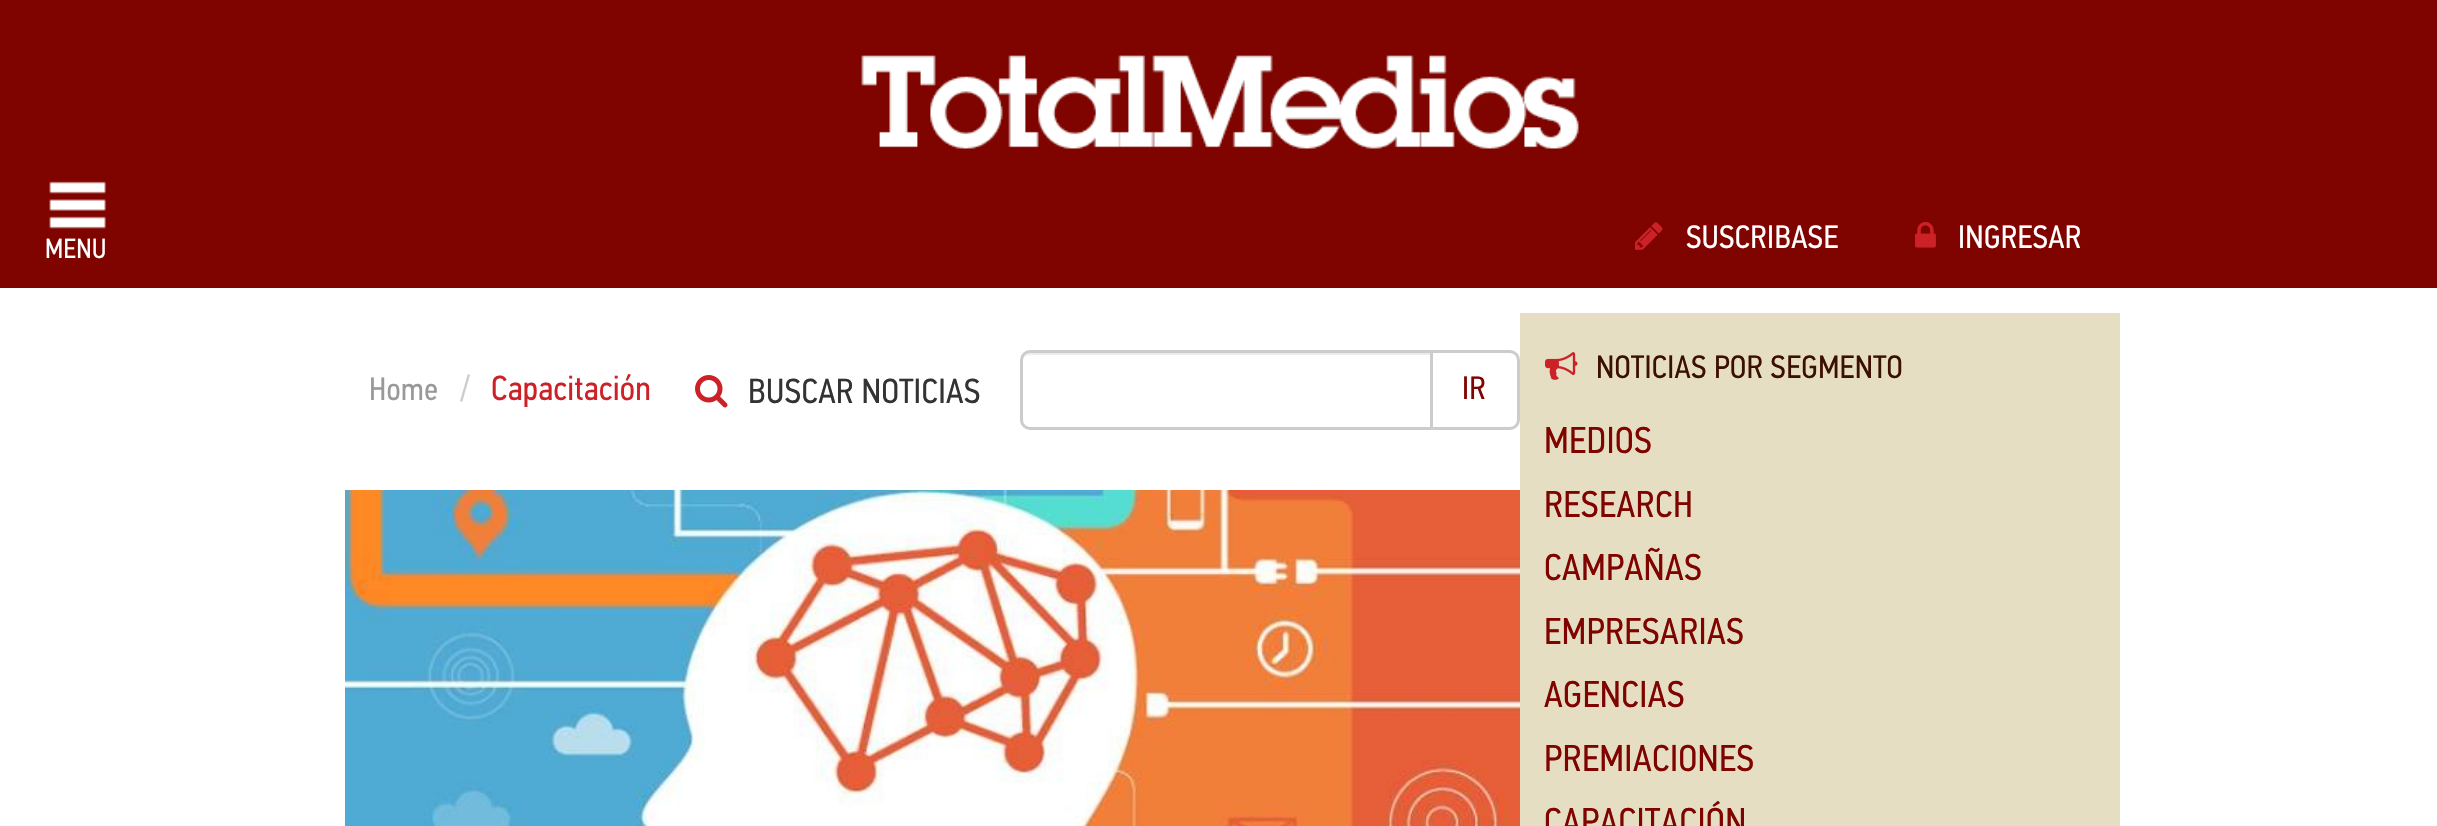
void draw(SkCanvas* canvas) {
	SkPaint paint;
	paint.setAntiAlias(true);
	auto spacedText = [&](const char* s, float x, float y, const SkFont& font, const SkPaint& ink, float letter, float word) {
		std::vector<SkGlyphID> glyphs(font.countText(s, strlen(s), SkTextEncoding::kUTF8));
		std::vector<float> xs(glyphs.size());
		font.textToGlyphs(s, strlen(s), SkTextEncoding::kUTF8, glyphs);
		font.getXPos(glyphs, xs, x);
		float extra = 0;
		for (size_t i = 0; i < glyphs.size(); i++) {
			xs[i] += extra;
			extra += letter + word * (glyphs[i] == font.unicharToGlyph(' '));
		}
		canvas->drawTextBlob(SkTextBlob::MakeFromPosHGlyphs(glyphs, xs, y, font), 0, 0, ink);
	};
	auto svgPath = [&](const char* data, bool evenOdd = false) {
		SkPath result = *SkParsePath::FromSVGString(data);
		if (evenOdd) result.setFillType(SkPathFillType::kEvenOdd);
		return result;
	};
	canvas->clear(0xffffffff);
	paint.setColor(0xff7f0400);
	canvas->drawRect(SkRect::MakeXYWH(0, 0, 2437, 288), paint);
	canvas->drawImageRect(SkImages::DeferredFromEncodedData(SkData::MakeFromFileName("img1.png")), SkRect::MakeXYWH(49, 181, 57, 48), SkSamplingOptions());
	SkFont f1(fontMgr->matchFamilyStyle("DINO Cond", SkFontStyle::Normal()), 27.5);
	f1.setSubpixel(true);
	paint.setColor(0xffffffff);
	spacedText("MENU", 45, 258, f1, paint, 0.3, 0);
	canvas->drawImageRect(SkImages::DeferredFromEncodedData(SkData::MakeFromFileName("img2.png")), SkRect::MakeXYWH(861, 55, 718, 94), SkSamplingOptions());
	canvas->drawImageRect(SkImages::DeferredFromEncodedData(SkData::MakeFromFileName("img3.png")), SkRect::MakeXYWH(1635, 222, 28, 28), SkSamplingOptions());
	SkFont f2(fontMgr->matchFamilyStyle("DINO Cond", SkFontStyle::Normal()), 32.5);
	f2.setSubpixel(true);
	spacedText("SUSCRIBASE", 1686, 248, f2, paint, 0.3, 0);
	canvas->drawImageRect(SkImages::DeferredFromEncodedData(SkData::MakeFromFileName("img4.png")), SkRect::MakeXYWH(1915, 222, 21, 26), SkSamplingOptions());
	spacedText("INGRESAR", 1958, 248, f2, paint, 0.3, 0);
	paint.setColor(0xff999999);
	spacedText("Home", 369, 400, f2, paint, 0.3, 0);
	SkFont f3(fontMgr->matchFamilyStyle("DINO Cond", SkFontStyle::Normal()), 35);
	f3.setSubpixel(true);
	paint.setColor(0xffcccccc);
	spacedText("/", 460, 400, f3, paint, 0.3, 0);
	paint.setColor(0xffcc2127);
	spacedText("Capacitación", 491, 400, f3, paint, 0.3, 0);
	canvas->drawImageRect(SkImages::DeferredFromEncodedData(SkData::MakeFromFileName("img5.png")), SkRect::MakeXYWH(695, 375, 33, 33), SkSamplingOptions());
	paint.setColor(0xff333333);
	spacedText("BUSCAR NOTICIAS", 748, 403, f3, paint, 0.3, 0);
	paint.setStroke(true);
	paint.setStrokeWidth(3);
	paint.setColor(0xffcccccc);
	canvas->drawPath(svgPath("M1431.5 351.5H1510C1514.5 351.5 1518.5 355.5 1518.5 360V420C1518.5 424.5 1514.5 428.5 1510 428.5H1431.5Z"), paint);
	paint.setStroke(false);
	paint.setColor(0xffffffff);
	canvas->drawPath(svgPath("M1030 350H1433V430H1030C1024.5 430 1020 425.5 1020 420V360C1020 354.5 1024.5 350 1030 350Z"), paint);
	paint.setColor(0xffececec);
	canvas->drawPath(svgPath("M1030 355H1430V353H1031C1028 353 1025 355 1024 358C1025 356 1028 355 1030 355Z"), paint);
	paint.setStroke(true);
	paint.setColor(0xffcccccc);
	canvas->drawPath(svgPath("M1030 351.5H1431.5V428.5H1030C1025.5 428.5 1021.5 424.5 1021.5 420V360C1021.5 355.5 1025.5 351.5 1030 351.5Z"), paint);
	paint.setStroke(false);
	paint.setColor(0xff7f0400);
	spacedText("IR", 1462, 399, f2, paint, 0.3, 0);
	canvas->drawImageRect(SkImages::DeferredFromEncodedData(SkData::MakeFromFileName("img6.png")), SkRect::MakeXYWH(345, 490, 1175, 336), SkSamplingOptions());
	paint.setColor(0xffe5dec2);
	canvas->drawRect(SkRect::MakeXYWH(1520, 313, 600, 513), paint);
	canvas->drawImageRect(SkImages::DeferredFromEncodedData(SkData::MakeFromFileName("img7.png")), SkRect::MakeXYWH(1545, 352, 33, 28), SkSamplingOptions());
	paint.setColor(0xff3c1000);
	spacedText("NOTICIAS POR SEGMENTO", 1596, 378, f2, paint, 0.3, 0);
	SkFont f4(fontMgr->matchFamilyStyle("DINO Cond", SkFontStyle::Normal()), 37.5);
	f4.setSubpixel(true);
	paint.setColor(0xff7f0400);
	spacedText("MEDIOS", 1544, 453, f4, paint, 0.4, 0);
	spacedText("RESEARCH", 1544, 517, f4, paint, 0.4, 0);
	spacedText("CAMPAÑAS", 1544, 580, f4, paint, 0.4, 0);
	spacedText("EMPRESARIAS", 1544, 644, f4, paint, 0.4, 0);
	spacedText("AGENCIAS", 1544, 707, f4, paint, 0.4, 0);
	spacedText("PREMIACIONES", 1544, 771, f4, paint, 0.4, 0);
	spacedText("CAPACITACIÓN", 1544, 834, f4, paint, 0.4, 0);
}
